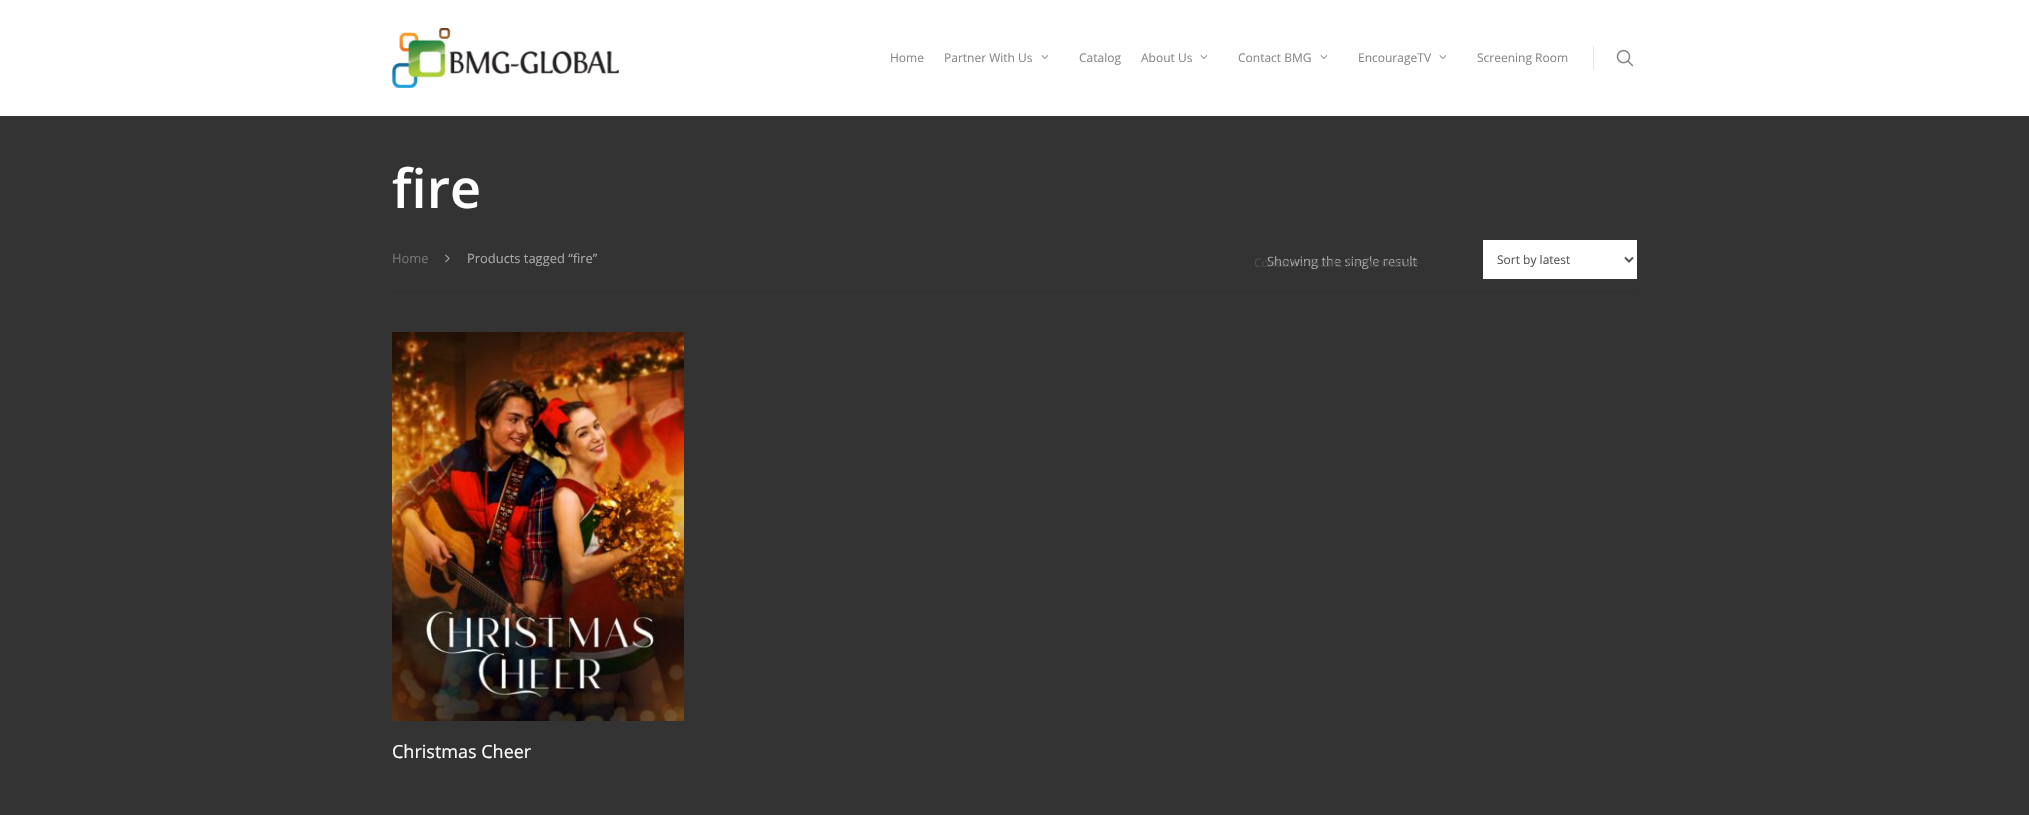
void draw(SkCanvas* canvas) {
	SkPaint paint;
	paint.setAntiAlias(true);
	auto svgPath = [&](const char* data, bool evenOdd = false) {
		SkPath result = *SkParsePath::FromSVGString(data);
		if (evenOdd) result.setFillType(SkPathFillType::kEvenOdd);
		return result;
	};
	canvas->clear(0xffffffff);
	canvas->drawImageRect(SkImages::DeferredFromEncodedData(SkData::MakeFromFileName("img1.png")), SkRect::MakeXYWH(392, 28, 227, 60), SkSamplingOptions());
	SkFont f1(fontMgr->matchFamilyStyle("Open Sans", SkFontStyle::Normal()), 12);
	f1.setSubpixel(true);
	paint.setColor(0xff888888);
	canvas->drawString("Home", 890, 62, f1, paint);
	canvas->drawString("Partner With Us", 944, 62, f1, paint);
	canvas->drawImageRect(SkImages::DeferredFromEncodedData(SkData::MakeFromFileName("img2.png")), SkRect::MakeXYWH(1041, 55, 8, 4), SkSamplingOptions());
	canvas->drawString("Catalog", 1079, 62, f1, paint);
	canvas->drawString("About Us", 1141, 62, f1, paint);
	canvas->drawImageRect(SkImages::DeferredFromEncodedData(SkData::MakeFromFileName("img2.png")), SkRect::MakeXYWH(1200, 55, 8, 4), SkSamplingOptions());
	canvas->drawString("Contact BMG", 1238, 62, f1, paint);
	canvas->drawImageRect(SkImages::DeferredFromEncodedData(SkData::MakeFromFileName("img2.png")), SkRect::MakeXYWH(1320, 55, 8, 4), SkSamplingOptions());
	paint.setColor(0xff333333);
	canvas->drawRect(SkRect::MakeXYWH(0, 116, 2029, 699), paint);
	SkFont f2(fontMgr->matchFamilyStyle("Open Sans", SkFontStyle::Normal()), 12.9);
	f2.setSubpixel(true);
	paint.setColor(0xffaaaaaa);
	canvas->drawString("Showing the single result", 1267, 266, f2, paint);
	paint.setColor(0xff4d4d4d);
	canvas->drawString("Contact – Public Performance", 1254, 267, f1, paint);
	paint.setColor(0xff888888);
	canvas->drawString("EncourageTV", 1358, 62, f1, paint);
	canvas->drawImageRect(SkImages::DeferredFromEncodedData(SkData::MakeFromFileName("img2.png")), SkRect::MakeXYWH(1439, 55, 8, 4), SkSamplingOptions());
	canvas->drawString("Screening Room", 1477, 62, f1, paint);
	paint.setColor(0xffe7e7e7);
	canvas->drawRect(SkRect::MakeXYWH(1593, 46, 1, 24), paint);
	canvas->drawImageRect(SkImages::DeferredFromEncodedData(SkData::MakeFromFileName("img3.png")), SkRect::MakeXYWH(1616, 49, 18, 18), SkSamplingOptions());
	SkFont f3(fontMgr->matchFamilyStyle("Open Sans", SkFontStyle(600, SkFontStyle::kNormal_Width, SkFontStyle::kUpright_Slant)), 54);
	f3.setSubpixel(true);
	paint.setColor(0xffffffff);
	canvas->drawString("fire", 392, 208, f3, paint);
	paint.setColor(0xff2f2f2f);
	canvas->drawRect(SkRect::MakeXYWH(392, 291, 1245, 1), paint);
	paint.setColor(0xff767676);
	canvas->drawString("Home", 392, 263, f2, paint);
	canvas->drawImageRect(SkImages::DeferredFromEncodedData(SkData::MakeFromFileName("img4.png")), SkRect::MakeXYWH(445, 254, 5, 9), SkSamplingOptions());
	paint.setColor(0xffaaaaaa);
	canvas->drawString("Products tagged “fire”", 467, 263, f2, paint);
	paint.setColor(0xffffffff);
	canvas->drawRect(SkRect::MakeXYWH(1483, 240, 154, 39), paint);
	paint.setStroke(true);
	paint.setStrokeWidth(2);
	paint.setColor(0xff555555);
	canvas->drawPath(svgPath("M1625 257.5L1629 261.5L1633 257.5"), paint);
	paint.setStroke(false);
	canvas->drawString("Sort by latest", 1497, 264, f1, paint);
	canvas->drawImageRect(SkImages::DeferredFromEncodedData(SkData::MakeFromFileName("img5.png")), SkRect::MakeXYWH(392, 332, 292, 389), SkSamplingOptions());
	SkFont f4(fontMgr->matchFamilyStyle("Open Sans", SkFontStyle::Normal()), 18);
	f4.setSubpixel(true);
	paint.setColor(0xffffffff);
	canvas->drawString("Christmas Cheer", 392, 758, f4, paint);
}
